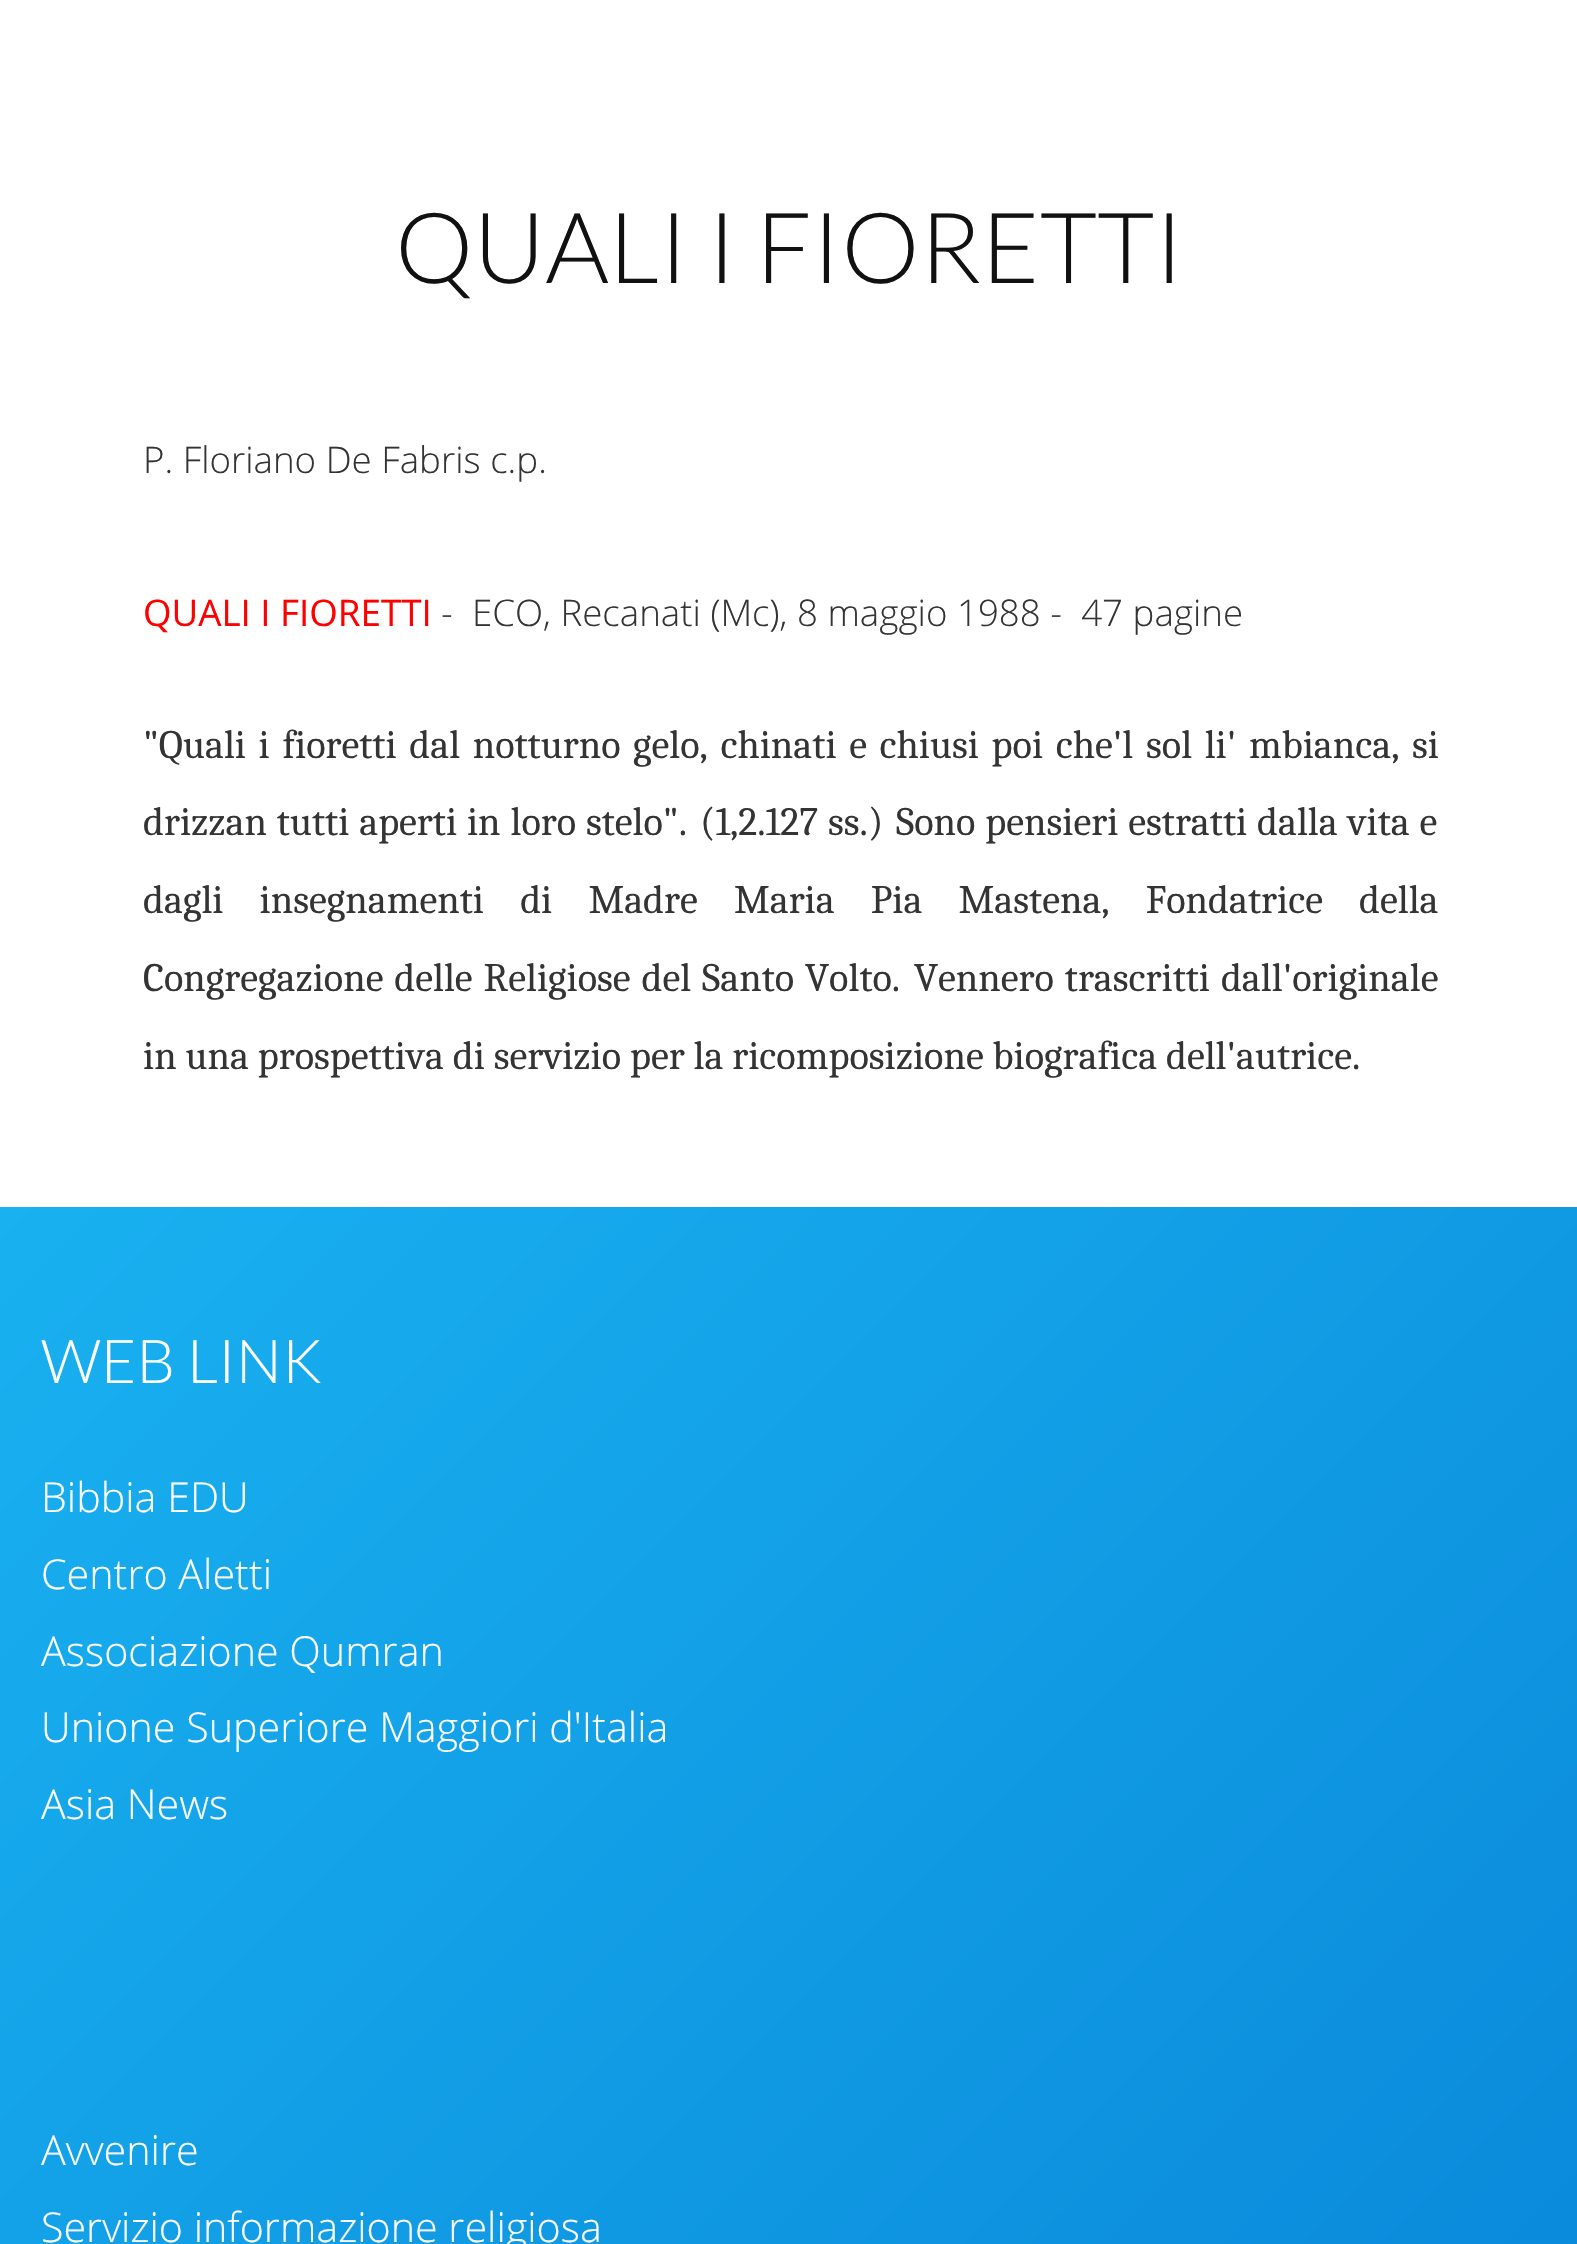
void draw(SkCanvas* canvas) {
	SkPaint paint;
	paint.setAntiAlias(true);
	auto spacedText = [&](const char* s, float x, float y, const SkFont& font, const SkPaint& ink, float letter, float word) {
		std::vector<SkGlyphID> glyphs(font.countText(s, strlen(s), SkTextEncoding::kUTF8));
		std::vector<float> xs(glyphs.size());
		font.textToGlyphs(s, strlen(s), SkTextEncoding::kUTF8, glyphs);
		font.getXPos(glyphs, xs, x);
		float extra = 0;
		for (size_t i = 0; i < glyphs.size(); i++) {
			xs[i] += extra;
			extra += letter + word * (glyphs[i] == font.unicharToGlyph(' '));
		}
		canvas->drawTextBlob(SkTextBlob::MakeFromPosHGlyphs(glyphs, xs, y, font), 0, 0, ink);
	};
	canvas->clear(0xffffffff);
	SkFont f1(fontMgr->matchFamilyStyle("Lato", SkFontStyle(300, SkFontStyle::kNormal_Width, SkFontStyle::kUpright_Slant)), 98.25);
	f1.setSubpixel(true);
	paint.setColor(0xff111111);
	canvas->drawString("QUALI I FIORETTI", 395, 283, f1, paint);
	SkFont f2(fontMgr->matchFamilyStyle("Open Sans", SkFontStyle(300, SkFontStyle::kNormal_Width, SkFontStyle::kUpright_Slant)), 36.7);
	f2.setSubpixel(true);
	paint.setColor(0xff343434);
	canvas->drawString("P. Floriano De Fabris c.p.", 143, 473, f2, paint);
	SkFont f3(fontMgr->matchFamilyStyle("Open Sans", SkFontStyle::Normal()), 36.7);
	f3.setSubpixel(true);
	paint.setColor(0xffff0000);
	canvas->drawString("QUALI I FIORETTI", 143, 626, f3, paint);
	paint.setColor(0xff343434);
	canvas->drawString("-  ECO, Recanati (Mc), 8 maggio 1988 -  47 pagine", 441, 626, f2, paint);
	SkFont f4(fontMgr->matchFamilyStyle("Caladea", SkFontStyle::Normal()), 40.3);
	f4.setSubpixel(true);
	spacedText("\"Quali i fioretti dal notturno", 143, 758, f4, paint, 0, 3.75);
	spacedText("gelo, chinati e chiusi poi che'l", 633, 758, f4, paint, 0, 3.75);
	spacedText("sol li' mbianca, si", 1146, 758, f4, paint, 0, 3.75);
	spacedText("drizzan tutti aperti in loro stelo\".", 143, 835, f4, paint, 0, 1);
	spacedText("(1,2.127 ss.)", 700, 835, f4, paint, 0, 1);
	spacedText("Sono pensieri estratti dalla vita e", 896, 835, f4, paint, 0, 1);
	spacedText("dagli insegnamenti di Madre Maria Pia Mastena, Fondatrice della", 143, 913, f4, paint, 0, 27.25);
	spacedText("Congregazione delle Religiose del Santo Volto.", 143, 991, f4, paint, 0, 2);
	spacedText("Vennero trascritti dall'originale", 914, 991, f4, paint, 0, 2);
	canvas->drawString("in una prospettiva di servizio per la ricomposizione biografica dell'autrice.", 143, 1069, f4, paint);
	{
		const SkColor colors[] = {0xff19b1f0, 0xff0171cd};
		const float stops[] = {0, 1};
		const SkPoint ends[] = {{-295, 1502}, {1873, 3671}};
		paint.setShader(SkGradientShader::MakeLinear(ends, colors, stops, 2, SkTileMode::kClamp));
		paint.setAlpha(255);
	}
	canvas->drawRect(SkRect::MakeXYWH(0, 1207, 1577, 1037), paint);
	SkFont f5(fontMgr->matchFamilyStyle("Lato", SkFontStyle(300, SkFontStyle::kNormal_Width, SkFontStyle::kUpright_Slant)), 60.5);
	f5.setSubpixel(true);
	paint.setShader(nullptr);
	paint.setColor(0xffffffff);
	canvas->drawString("WEB LINK", 41, 1383, f5, paint);
	SkFont f6(fontMgr->matchFamilyStyle("Open Sans", SkFontStyle(300, SkFontStyle::kNormal_Width, SkFontStyle::kUpright_Slant)), 41.25);
	f6.setSubpixel(true);
	canvas->drawString("Bibbia EDU", 41, 1512, f6, paint);
	canvas->drawString("Centro Aletti", 41, 1589, f6, paint);
	canvas->drawString("Associazione Qumran", 41, 1666, f6, paint);
	canvas->drawString("Unione Superiore Maggiori d'Italia", 41, 1742, f6, paint);
	canvas->drawString("Asia News", 41, 1819, f6, paint);
	canvas->drawString("Avvenire", 41, 2165, f6, paint);
	canvas->drawString("Servizio informazione religiosa", 41, 2242, f6, paint);
}
